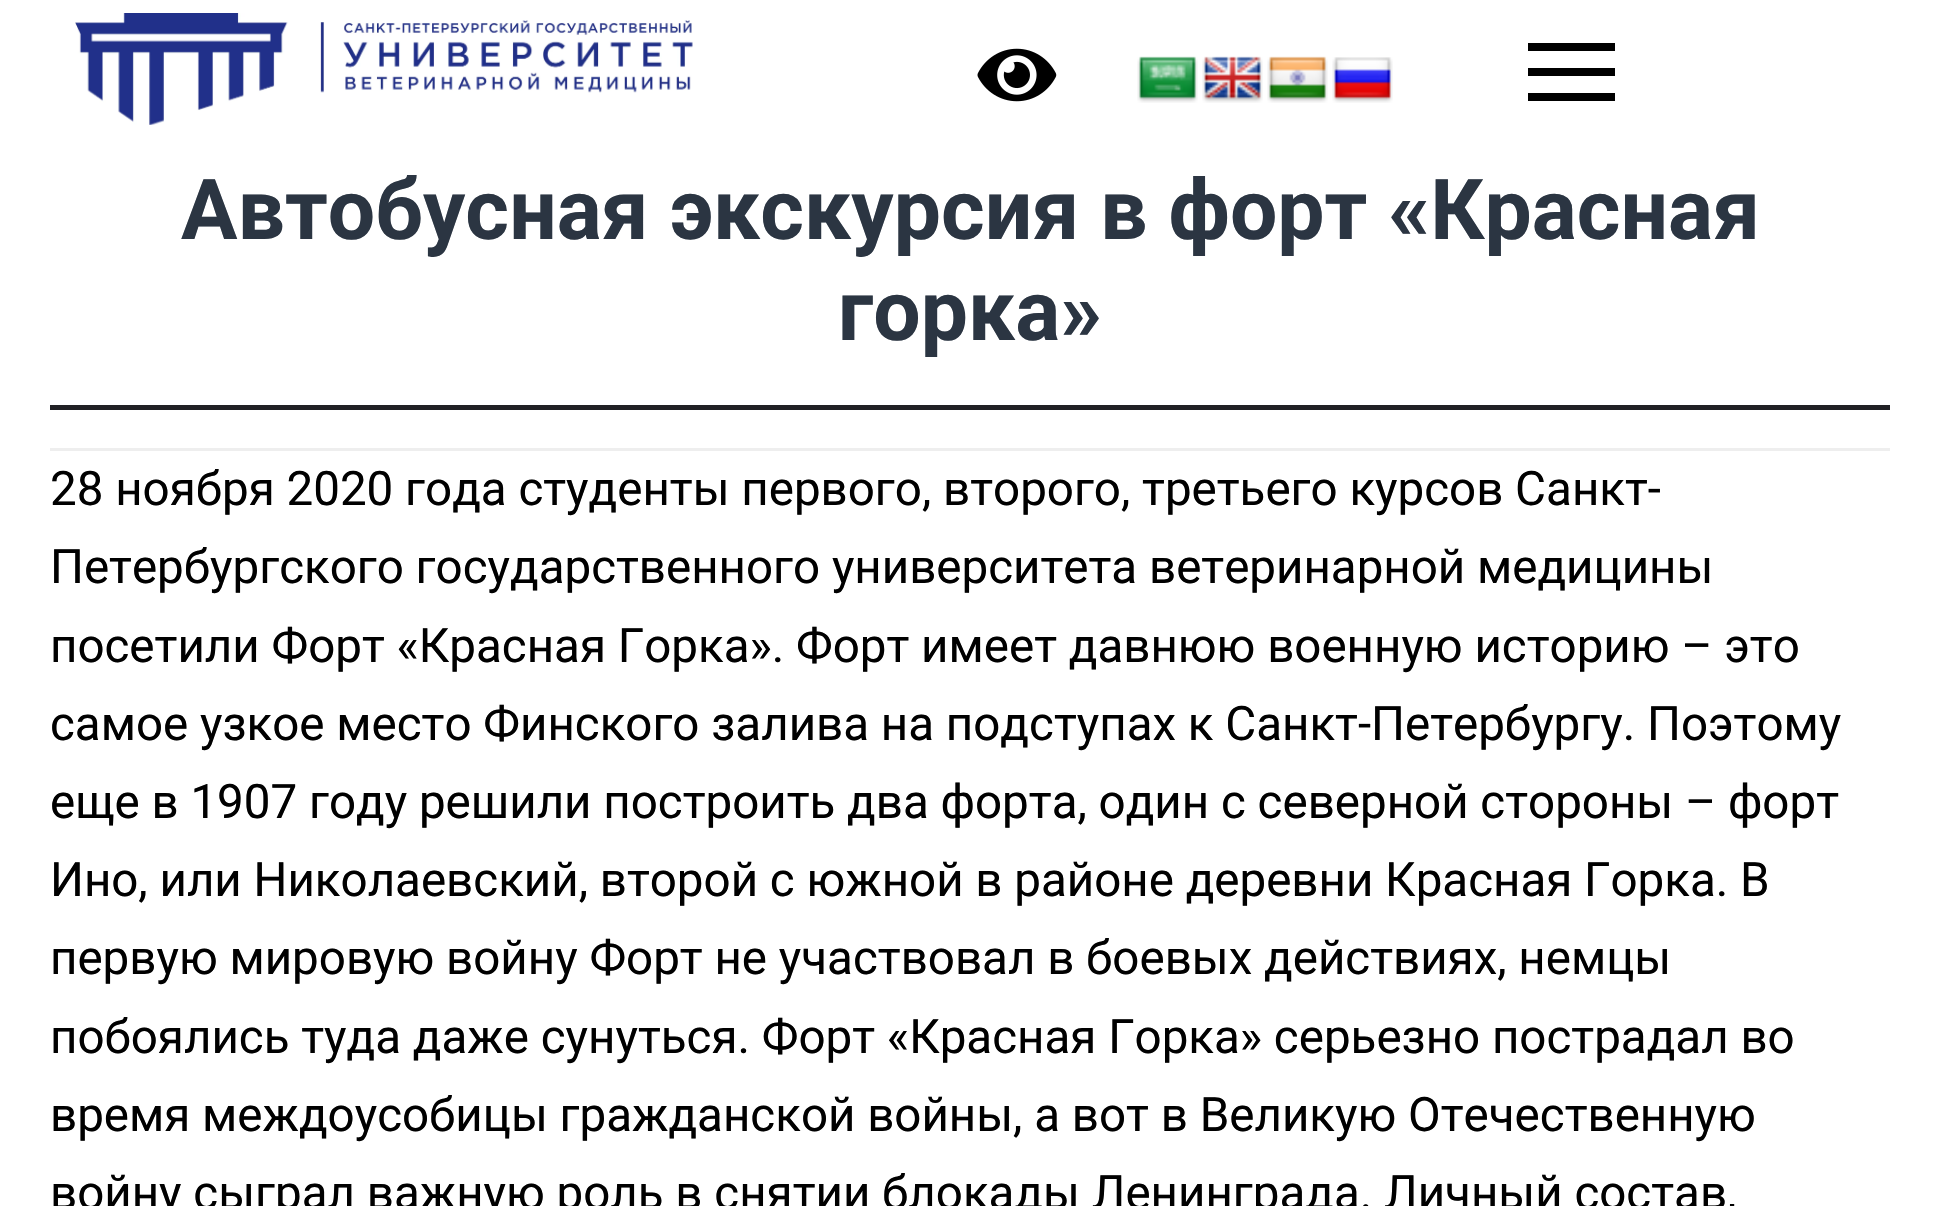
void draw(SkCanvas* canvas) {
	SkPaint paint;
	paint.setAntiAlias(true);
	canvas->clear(0xffffffff);
	canvas->drawImageRect(SkImages::DeferredFromEncodedData(SkData::MakeFromFileName("img1.png")), SkRect::MakeXYWH(75, 13, 618, 112), SkSamplingOptions());
	canvas->drawImageRect(SkImages::DeferredFromEncodedData(SkData::MakeFromFileName("img2.png")), SkRect::MakeXYWH(977, 48, 80, 54), SkSamplingOptions());
	canvas->drawImageRect(SkImages::DeferredFromEncodedData(SkData::MakeFromFileName("img3.png")), SkRect::MakeXYWH(1137, 56, 61, 47), SkSamplingOptions());
	canvas->drawImageRect(SkImages::DeferredFromEncodedData(SkData::MakeFromFileName("img4.png")), SkRect::MakeXYWH(1202, 56, 61, 47), SkSamplingOptions());
	canvas->drawImageRect(SkImages::DeferredFromEncodedData(SkData::MakeFromFileName("img5.png")), SkRect::MakeXYWH(1267, 56, 61, 47), SkSamplingOptions());
	canvas->drawImageRect(SkImages::DeferredFromEncodedData(SkData::MakeFromFileName("img6.png")), SkRect::MakeXYWH(1332, 57, 61, 46), SkSamplingOptions());
	paint.setColor(0xff000000);
	canvas->drawRect(SkRect::MakeXYWH(1528, 43, 87, 8), paint);
	canvas->drawRect(SkRect::MakeXYWH(1528, 68, 87, 8), paint);
	canvas->drawRect(SkRect::MakeXYWH(1528, 93, 87, 8), paint);
	paint.setColor(0xffeeeeee);
	canvas->drawRect(SkRect::MakeXYWH(50, 448, 1840, 3), paint);
	paint.setColor(0xff212125);
	canvas->drawRect(SkRect::MakeXYWH(50, 405, 1840, 5), paint);
	SkFont f1(fontMgr->matchFamilyStyle("Roboto", SkFontStyle::Bold()), 84);
	f1.setSubpixel(true);
	paint.setColor(0xff2b3542);
	canvas->drawString("Автобусная экскурсия в форт «Красная", 181, 239, f1, paint);
	canvas->drawString("горка»", 838, 340, f1, paint);
	SkFont f2(fontMgr->matchFamilyStyle("Roboto", SkFontStyle::Normal()), 47.5);
	f2.setSubpixel(true);
	paint.setColor(0xff000000);
	canvas->drawString("28 ноября 2020 года студенты первого, второго, третьего курсов Санкт-", 50, 505, f2, paint);
	canvas->drawString("Петербургского государственного университета ветеринарной медицины", 50, 583, f2, paint);
	canvas->drawString("посетили Форт «Красная Горка». Форт имеет давнюю военную историю – это", 50, 662, f2, paint);
	canvas->drawString("самое узкое место Финского залива на подступах к Санкт-Петербургу. Поэтому", 50, 740, f2, paint);
	canvas->drawString("еще в 1907 году решили построить два форта, один с северной стороны – форт", 50, 818, f2, paint);
	canvas->drawString("Ино, или Николаевский, второй с южной в районе деревни Красная Горка. В", 50, 896, f2, paint);
	canvas->drawString("первую мировую войну Форт не участвовал в боевых действиях, немцы", 50, 974, f2, paint);
	canvas->drawString("побоялись туда даже сунуться. Форт «Красная Горка» серьезно пострадал во", 50, 1053, f2, paint);
	canvas->drawString("время междоусобицы гражданской войны, а вот в Великую Отечественную", 50, 1131, f2, paint);
	canvas->drawString("войну сыграл важную роль в снятии блокады Ленинграда. Личный состав,", 50, 1209, f2, paint);
}
